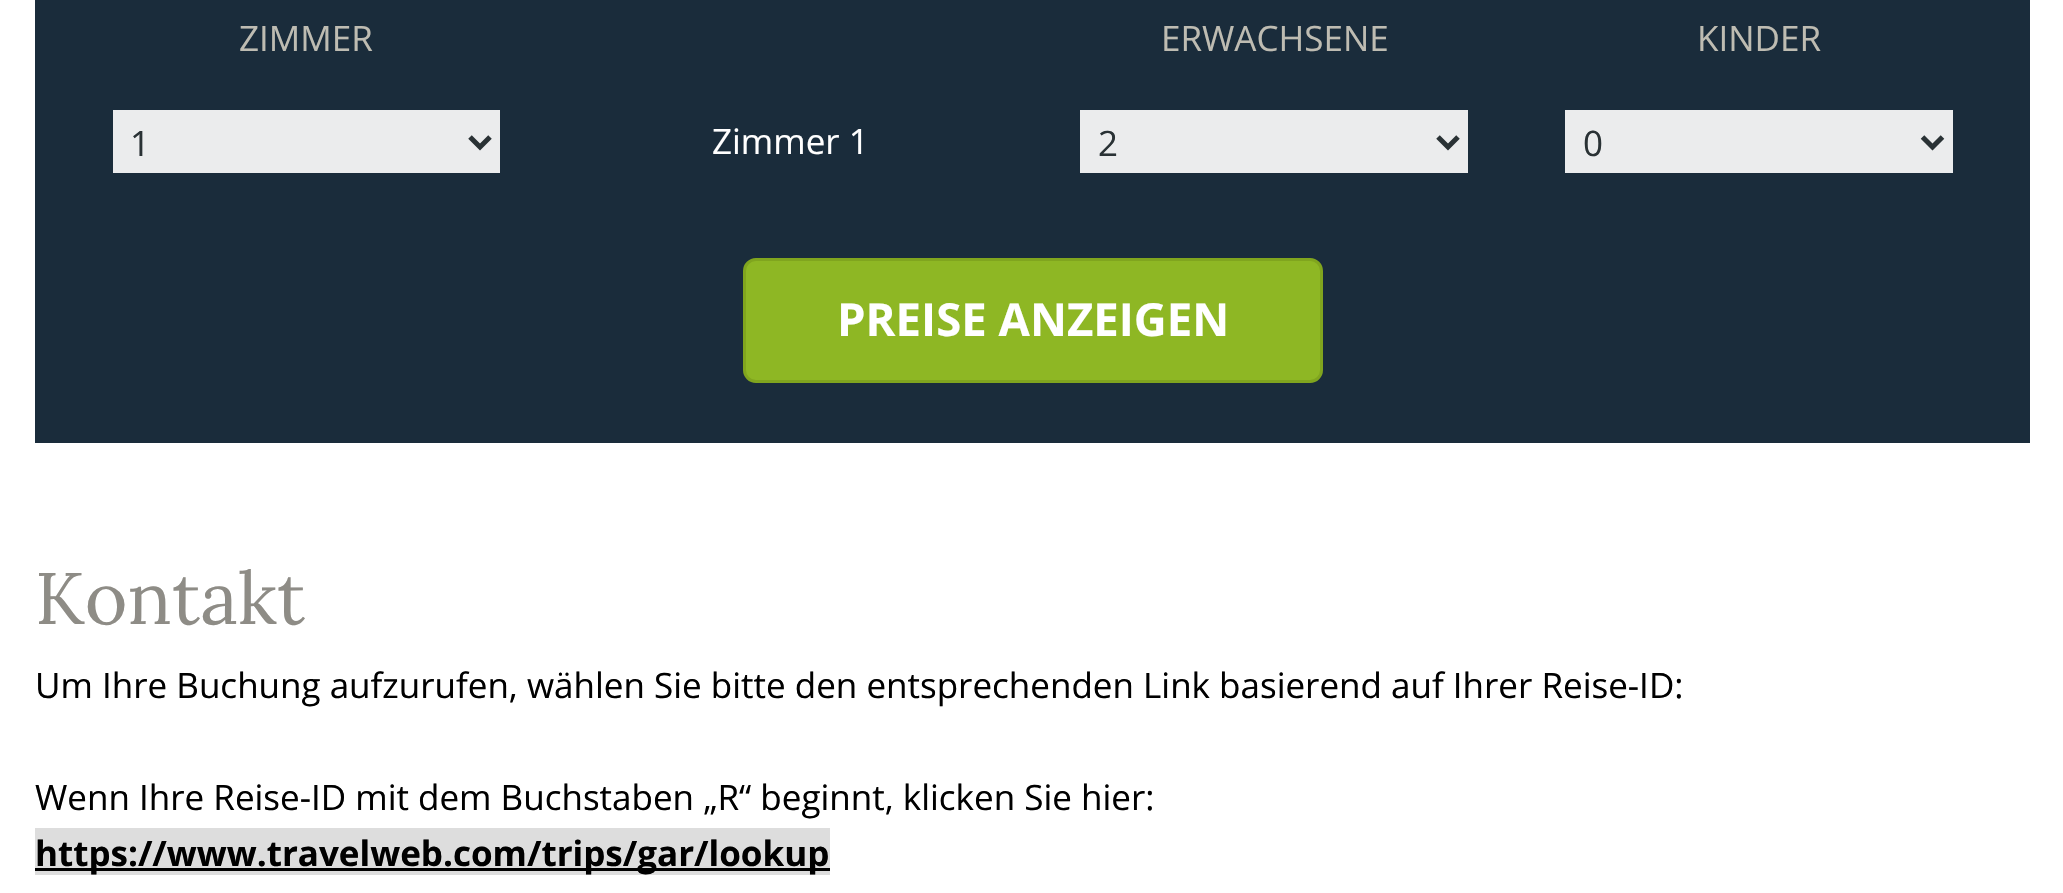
void draw(SkCanvas* canvas) {
	SkPaint paint;
	paint.setAntiAlias(true);
	auto svgPath = [&](const char* data, bool evenOdd = false) {
		SkPath result = *SkParsePath::FromSVGString(data);
		if (evenOdd) result.setFillType(SkPathFillType::kEvenOdd);
		return result;
	};
	canvas->clear(0xffffffff);
	paint.setColor(0xff1a2c3b);
	canvas->drawRect(SkRect::MakeXYWH(35, 0, 1995, 443), paint);
	SkFont f1(fontMgr->matchFamilyStyle("Open Sans", SkFontStyle::Normal()), 35);
	f1.setSubpixel(true);
	paint.setColor(0xffbebcb2);
	canvas->drawString("ZIMMER", 239, 51, f1, paint);
	canvas->drawString("ERWACHSENE", 1161, 51, f1, paint);
	canvas->drawString("KINDER", 1697, 51, f1, paint);
	paint.setColor(0xffebeced);
	canvas->drawRect(SkRect::MakeXYWH(113, 110, 387, 63), paint);
	paint.setStroke(true);
	paint.setStrokeWidth(5);
	paint.setColor(0xff2a3235);
	canvas->drawPath(svgPath("M470 137L480 147L490 137"), paint);
	paint.setStroke(false);
	canvas->drawString("1", 130, 156, f1, paint);
	paint.setColor(0xffffffff);
	canvas->drawString("Zimmer 1", 712, 154, f1, paint);
	paint.setColor(0xffebeced);
	canvas->drawRect(SkRect::MakeXYWH(1080, 110, 388, 63), paint);
	paint.setStroke(true);
	paint.setColor(0xff2a3235);
	canvas->drawPath(svgPath("M1438 137L1448 147L1458 137"), paint);
	paint.setStroke(false);
	canvas->drawString("2", 1098, 156, f1, paint);
	paint.setColor(0xffebeced);
	canvas->drawRect(SkRect::MakeXYWH(1565, 110, 388, 63), paint);
	paint.setStroke(true);
	paint.setColor(0xff2a3235);
	canvas->drawPath(svgPath("M1922.5 137L1932.5 147L1942.5 137"), paint);
	paint.setStroke(false);
	canvas->drawString("0", 1583, 156, f1, paint);
	paint.setColor(0xff8eb724);
	canvas->drawRoundRect(SkRect::MakeXYWH(744.5, 259.5, 577, 122), 11.5, 11.5, paint);
	paint.setStroke(true);
	paint.setStrokeWidth(3);
	paint.setColor(0xff80a51e);
	canvas->drawRoundRect(SkRect::MakeXYWH(744.5, 259.5, 577, 122), 11.5, 11.5, paint);
	SkFont f2(fontMgr->matchFamilyStyle("Open Sans", SkFontStyle::Bold()), 45.5);
	f2.setSubpixel(true);
	paint.setStroke(false);
	paint.setColor(0xffffffff);
	canvas->drawString("PREISE ANZEIGEN", 837, 336, f2, paint);
	SkFont f3(fontMgr->matchFamilyStyle("Lora", SkFontStyle::Normal()), 73);
	f3.setSubpixel(true);
	paint.setColor(0xff8e8c86);
	canvas->drawString("Kontakt", 35, 624, f3, paint);
	paint.setColor(0xff000000);
	canvas->drawString("Um Ihre Buchung aufzurufen, wählen Sie bitte den entsprechenden Link basierend auf Ihrer Reise-ID:", 35, 698, f1, paint);
	canvas->drawString("Wenn Ihre Reise-ID mit dem Buchstaben „R“ beginnt, klicken Sie hier:", 35, 810, f1, paint);
	paint.setColor(0xffdddddd);
	canvas->drawRect(SkRect::MakeXYWH(35, 828, 795, 47), paint);
	paint.setColor(0xff000000);
	canvas->drawRect(SkRect::MakeXYWH(35, 868, 795, 3), paint);
	SkFont f4(fontMgr->matchFamilyStyle("Open Sans", SkFontStyle::Bold()), 35);
	f4.setSubpixel(true);
	canvas->drawString("https://www.travelweb.com/trips/gar/lookup", 35, 866, f4, paint);
}
